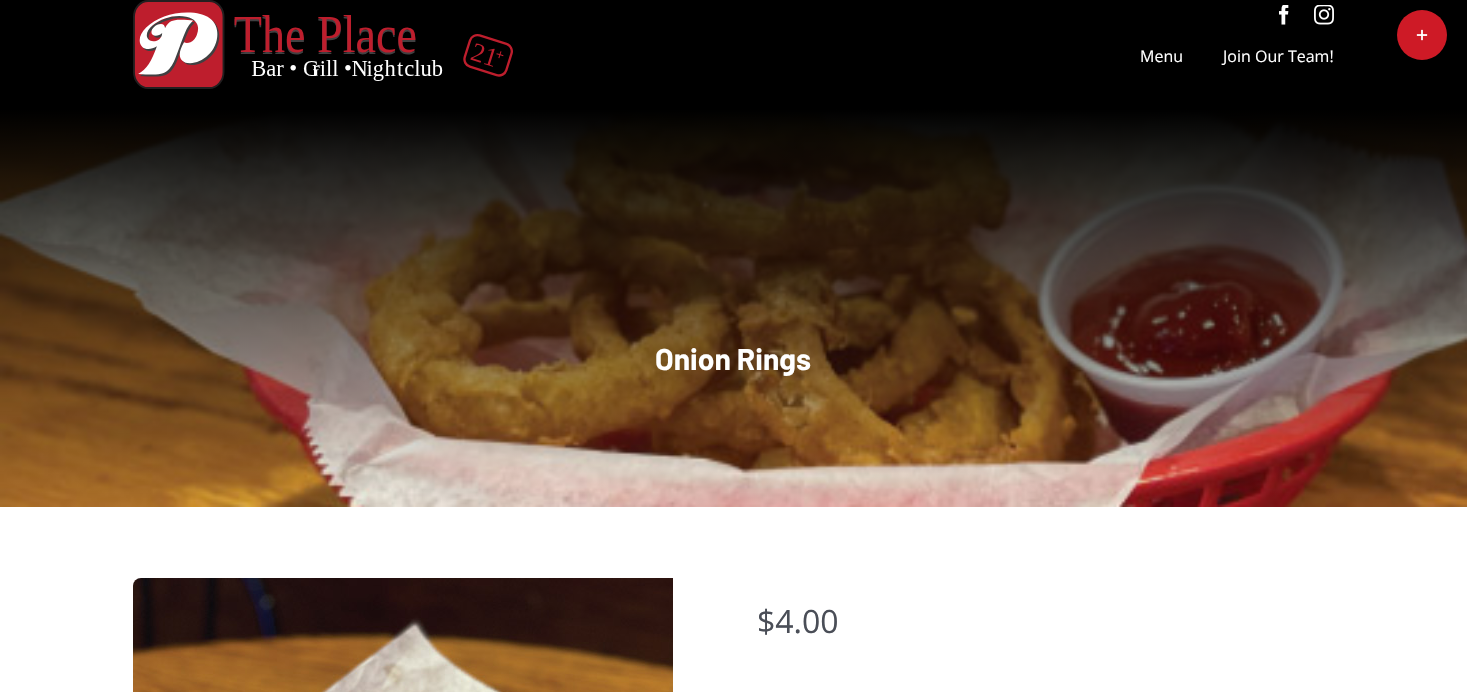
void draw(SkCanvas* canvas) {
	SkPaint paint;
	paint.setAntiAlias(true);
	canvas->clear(0xffffffff);
	paint.setColor(0xff000000);
	canvas->drawRect(SkRect::MakeXYWH(0, 0, 1467, 109), paint);
	canvas->drawImageRect(SkImages::DeferredFromEncodedData(SkData::MakeFromFileName("img1.png")), SkRect::MakeXYWH(133, 0, 380, 89), SkSamplingOptions());
	canvas->drawImageRect(SkImages::DeferredFromEncodedData(SkData::MakeFromFileName("img2.png")), SkRect::MakeXYWH(1279, 5, 10, 20), SkSamplingOptions());
	canvas->drawImageRect(SkImages::DeferredFromEncodedData(SkData::MakeFromFileName("img3.png")), SkRect::MakeXYWH(1314, 5, 20, 20), SkSamplingOptions());
	SkFont f1(fontMgr->matchFamilyStyle("Open Sans", SkFontStyle::Normal()), 16);
	f1.setSubpixel(true);
	paint.setColor(0xffffffff);
	canvas->drawString("Menu", 1140, 62, f1, paint);
	canvas->drawString("Join Our Team!", 1223, 62, f1, paint);
	paint.setColor(0xffce1a26);
	canvas->drawCircle(1422, 35, 25, paint);
	canvas->drawImageRect(SkImages::DeferredFromEncodedData(SkData::MakeFromFileName("img4.png")), SkRect::MakeXYWH(1416, 29, 12, 12), SkSamplingOptions());
	canvas->drawImageRect(SkImages::DeferredFromEncodedData(SkData::MakeFromFileName("img5.png")), SkRect::MakeXYWH(0, 109, 1467, 398), SkSamplingOptions());
	SkFont f2(fontMgr->matchFamilyStyle("Barlow", SkFontStyle::Bold()), 30);
	f2.setSubpixel(true);
	paint.setColor(0xffffffff);
	canvas->drawString("Onion Rings", 655, 370, f2, paint);
	canvas->drawImageRect(SkImages::DeferredFromEncodedData(SkData::MakeFromFileName("img6.png")), SkRect::MakeXYWH(133, 578, 540, 114), SkSamplingOptions());
	SkFont f3(fontMgr->matchFamilyStyle("Open Sans", SkFontStyle::Normal()), 32);
	f3.setSubpixel(true);
	paint.setColor(0xff4a4e57);
	canvas->drawString("$4.00", 757, 633, f3, paint);
}
